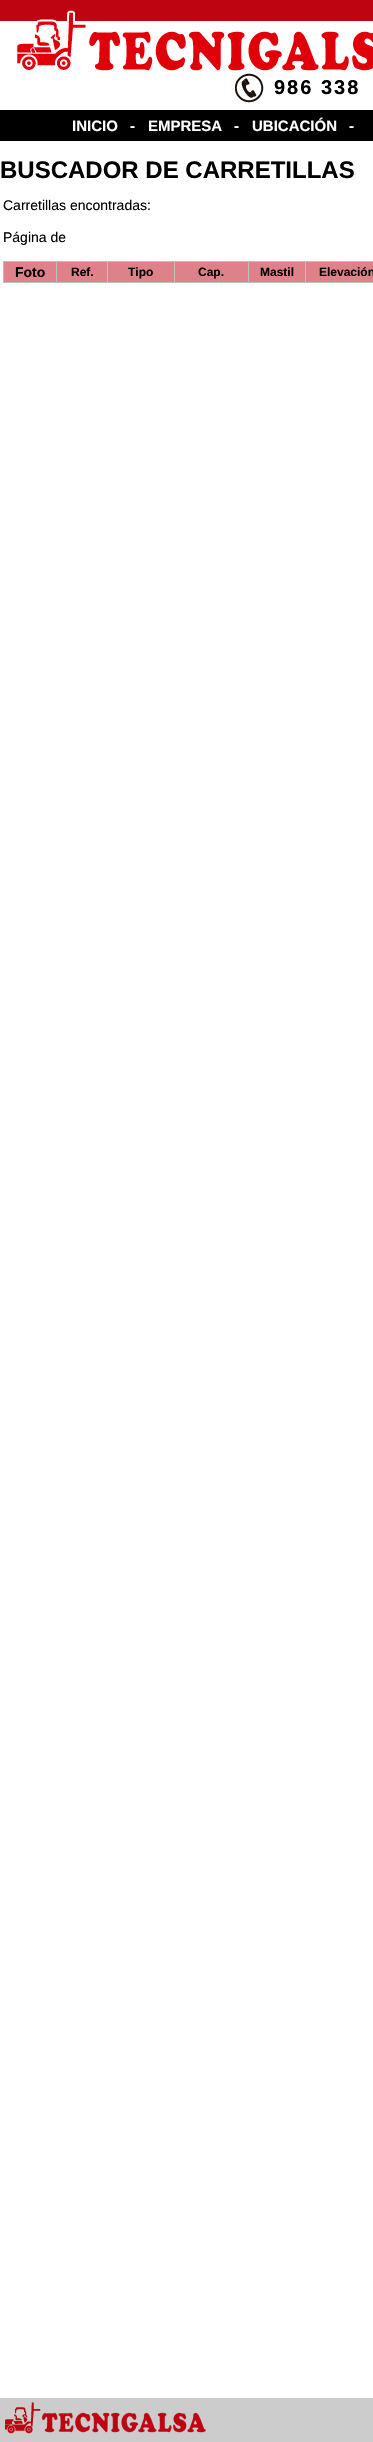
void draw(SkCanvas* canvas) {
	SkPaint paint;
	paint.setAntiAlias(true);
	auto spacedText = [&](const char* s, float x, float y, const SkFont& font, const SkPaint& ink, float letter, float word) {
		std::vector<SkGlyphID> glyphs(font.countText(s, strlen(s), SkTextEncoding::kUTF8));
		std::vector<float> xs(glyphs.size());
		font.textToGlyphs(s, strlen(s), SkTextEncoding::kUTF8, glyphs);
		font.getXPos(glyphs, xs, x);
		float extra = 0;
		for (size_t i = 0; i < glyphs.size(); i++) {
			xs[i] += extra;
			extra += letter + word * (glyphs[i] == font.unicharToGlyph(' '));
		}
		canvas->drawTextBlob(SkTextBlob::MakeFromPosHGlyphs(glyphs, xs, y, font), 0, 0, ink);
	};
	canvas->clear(0xffffffff);
	paint.setColor(0xffbf0411);
	canvas->drawRect(SkRect::MakeXYWH(0, 0, 373, 21), paint);
	canvas->drawImageRect(SkImages::DeferredFromEncodedData(SkData::MakeFromFileName("img1.png")), SkRect::MakeXYWH(17, 10, 356, 93), SkSamplingOptions());
	paint.setColor(0xff000000);
	canvas->drawRect(SkRect::MakeXYWH(0, 110, 373, 31), paint);
	SkFont f1(fontMgr->matchFamilyStyle("Liberation Sans", SkFontStyle::Bold()), 20);
	f1.setSubpixel(true);
	spacedText("986 338", 274, 94, f1, paint, 2, 0);
	SkFont f2(fontMgr->matchFamilyStyle("Liberation Sans", SkFontStyle::Bold()), 15);
	f2.setSubpixel(true);
	paint.setColor(0xffffffff);
	canvas->drawString("INICIO", 72, 131, f2, paint);
	canvas->drawString("-", 130, 131, f2, paint);
	canvas->drawString("EMPRESA", 148, 131, f2, paint);
	canvas->drawString("-", 234, 131, f2, paint);
	canvas->drawString("UBICACIÓN", 252, 131, f2, paint);
	canvas->drawString("-", 349, 131, f2, paint);
	SkFont f3(fontMgr->matchFamilyStyle("Liberation Sans", SkFontStyle::Bold()), 24);
	f3.setSubpixel(true);
	paint.setColor(0xff000000);
	canvas->drawString("BUSCADOR DE CARRETILLAS", 0, 178, f3, paint);
	SkFont f4(fontMgr->matchFamilyStyle("Liberation Sans", SkFontStyle::Normal()), 14);
	f4.setSubpixel(true);
	canvas->drawString("Carretillas encontradas:", 3, 210, f4, paint);
	canvas->drawString("Página de", 3, 242, f4, paint);
	paint.setColor(0xffbfbfbf);
	canvas->drawRect(SkRect::MakeXYWH(3, 261, 370, 22), paint);
	paint.setColor(0xffdf8188);
	canvas->drawRect(SkRect::MakeXYWH(4, 262, 52, 20), paint);
	SkFont f5(fontMgr->matchFamilyStyle("Liberation Sans", SkFontStyle::Bold()), 14);
	f5.setSubpixel(true);
	paint.setColor(0xff000000);
	canvas->drawString("Foto", 15, 277, f5, paint);
	paint.setColor(0xffdf8188);
	canvas->drawRect(SkRect::MakeXYWH(57, 262, 50, 20), paint);
	SkFont f6(fontMgr->matchFamilyStyle("Liberation Sans", SkFontStyle::Bold()), 12);
	f6.setSubpixel(true);
	paint.setColor(0xff000000);
	canvas->drawString("Ref.", 71, 276, f6, paint);
	paint.setColor(0xffdf8188);
	canvas->drawRect(SkRect::MakeXYWH(108, 262, 66, 20), paint);
	paint.setColor(0xff000000);
	canvas->drawString("Tipo", 128, 276, f6, paint);
	paint.setColor(0xffdf8188);
	canvas->drawRect(SkRect::MakeXYWH(175, 262, 73, 20), paint);
	paint.setColor(0xff000000);
	canvas->drawString("Cap.", 198, 276, f6, paint);
	paint.setColor(0xffdf8188);
	canvas->drawRect(SkRect::MakeXYWH(249, 262, 56, 20), paint);
	paint.setColor(0xff000000);
	canvas->drawString("Mastil", 260, 276, f6, paint);
	paint.setColor(0xffdf8188);
	canvas->drawRect(SkRect::MakeXYWH(306, 262, 67, 20), paint);
	paint.setColor(0xff000000);
	canvas->drawString("Elevación", 319, 276, f6, paint);
	paint.setColor(0xffcccccc);
	canvas->drawRect(SkRect::MakeXYWH(0, 2398, 373, 44), paint);
	canvas->drawImageRect(SkImages::DeferredFromEncodedData(SkData::MakeFromFileName("img2.png")), SkRect::MakeXYWH(5, 2402, 201, 32), SkSamplingOptions());
}
